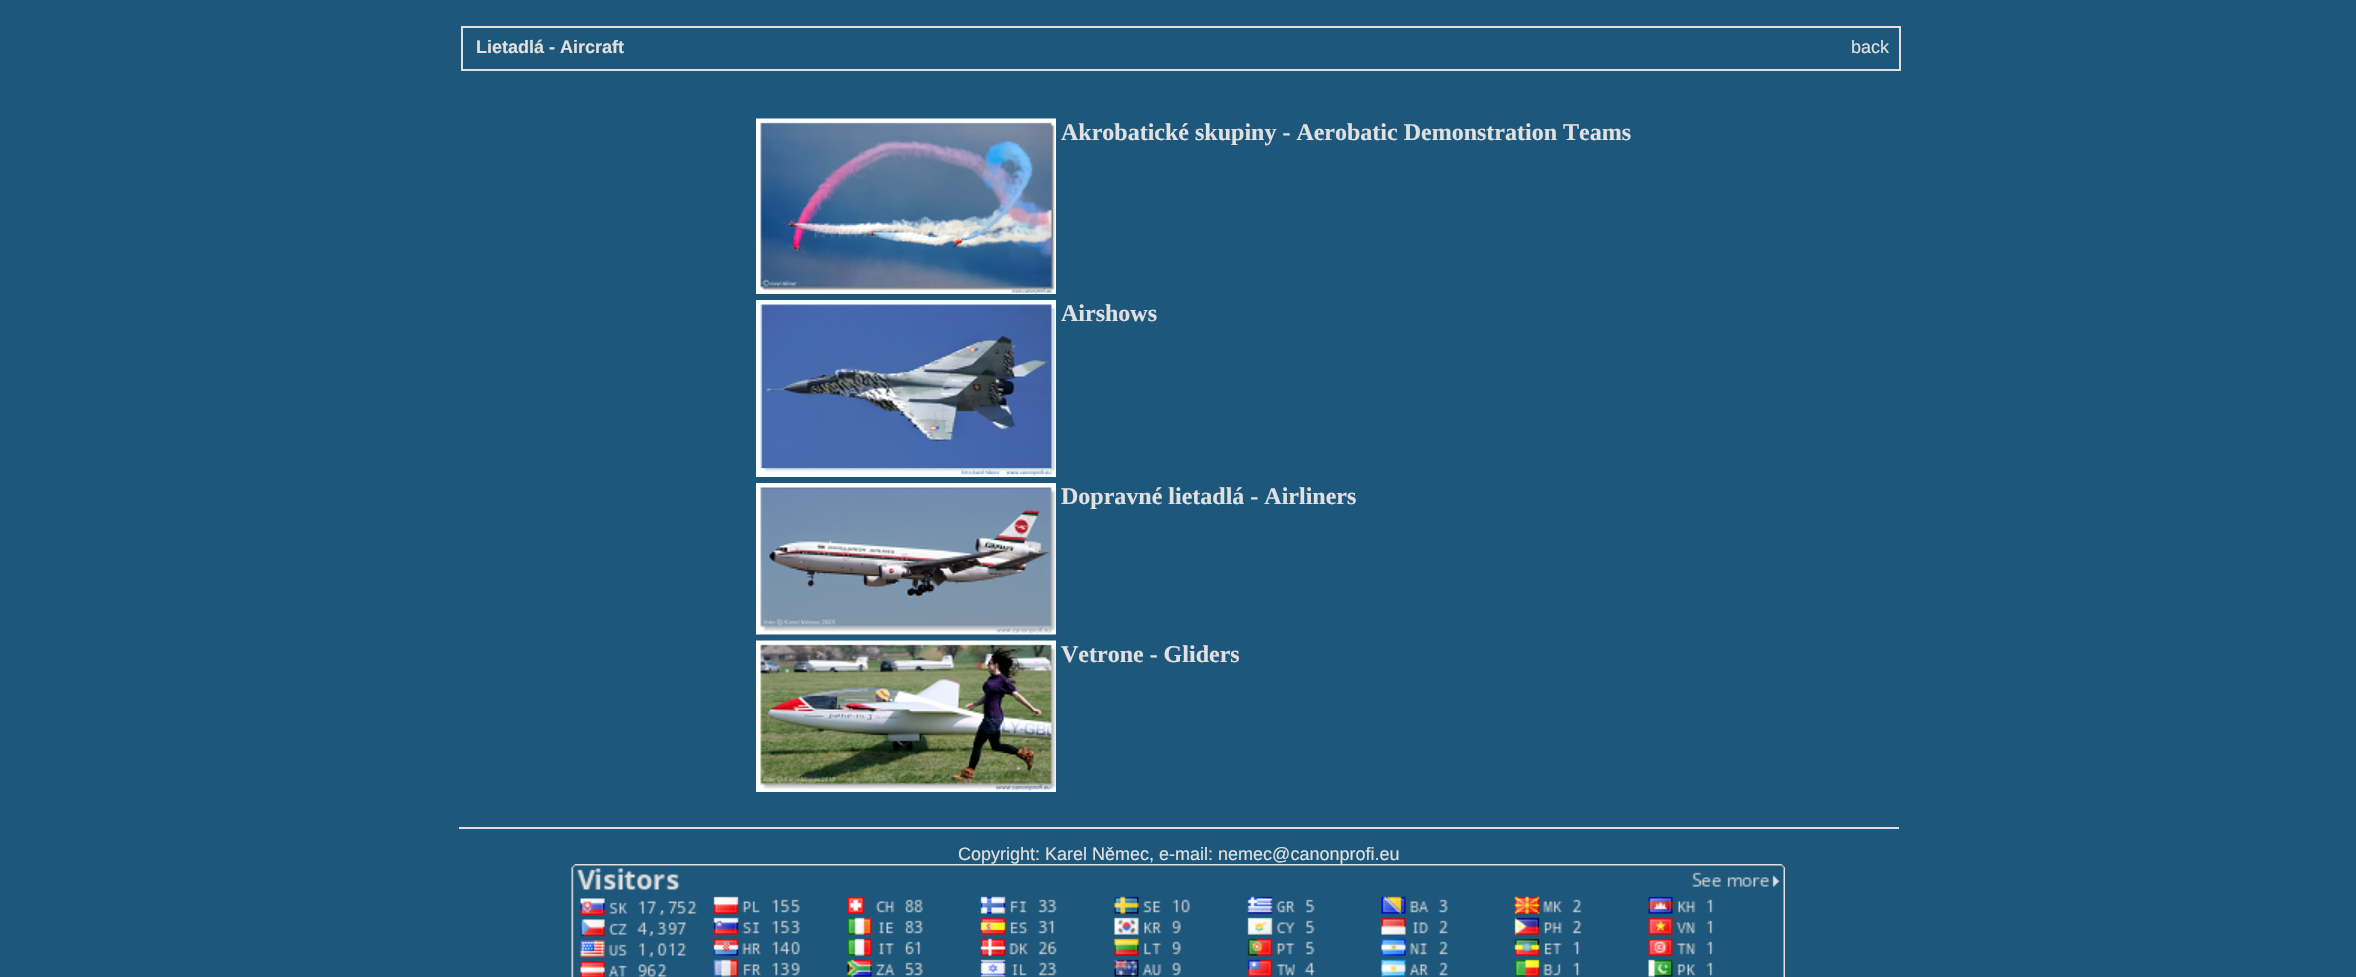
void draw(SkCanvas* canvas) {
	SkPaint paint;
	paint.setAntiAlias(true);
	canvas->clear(0xff1d577b);
	paint.setStroke(true);
	paint.setStrokeWidth(2);
	paint.setColor(0xffe0e0e0);
	canvas->drawRect(SkRect::MakeXYWH(462, 27, 1438, 43), paint);
	SkFont f1(fontMgr->matchFamilyStyle("Liberation Sans", SkFontStyle::Bold()), 18);
	f1.setSubpixel(true);
	paint.setStroke(false);
	canvas->drawString("Lietadlá - Aircraft", 476, 53, f1, paint);
	SkFont f2(fontMgr->matchFamilyStyle("Liberation Sans", SkFontStyle::Normal()), 18);
	f2.setSubpixel(true);
	canvas->drawString("back", 1851, 53, f2, paint);
	canvas->drawImageRect(SkImages::DeferredFromEncodedData(SkData::MakeFromFileName("img1.png")), SkRect::MakeXYWH(756, 118, 300, 176), SkSamplingOptions());
	SkFont f3(fontMgr->matchFamilyStyle("Liberation Serif", SkFontStyle::Bold()), 24);
	f3.setSubpixel(true);
	canvas->drawString("Akrobatické skupiny - Aerobatic Demonstration Teams", 1061, 140, f3, paint);
	canvas->drawImageRect(SkImages::DeferredFromEncodedData(SkData::MakeFromFileName("img2.png")), SkRect::MakeXYWH(756, 300, 300, 177), SkSamplingOptions());
	canvas->drawString("Airshows", 1061, 321, f3, paint);
	canvas->drawImageRect(SkImages::DeferredFromEncodedData(SkData::MakeFromFileName("img3.png")), SkRect::MakeXYWH(756, 483, 300, 152), SkSamplingOptions());
	canvas->drawString("Dopravné lietadlá - Airliners", 1061, 504, f3, paint);
	canvas->drawImageRect(SkImages::DeferredFromEncodedData(SkData::MakeFromFileName("img4.png")), SkRect::MakeXYWH(756, 640, 300, 152), SkSamplingOptions());
	canvas->drawString("Vetrone - Gliders", 1061, 662, f3, paint);
	canvas->drawRect(SkRect::MakeXYWH(459, 827, 1440, 2), paint);
	canvas->drawString("Copyright: Karel Němec, e-mail: nemec@canonprofi.eu", 958, 860, f2, paint);
	canvas->drawImageRect(SkImages::DeferredFromEncodedData(SkData::MakeFromFileName("img5.png")), SkRect::MakeXYWH(571, 864, 1214, 113), SkSamplingOptions());
}
